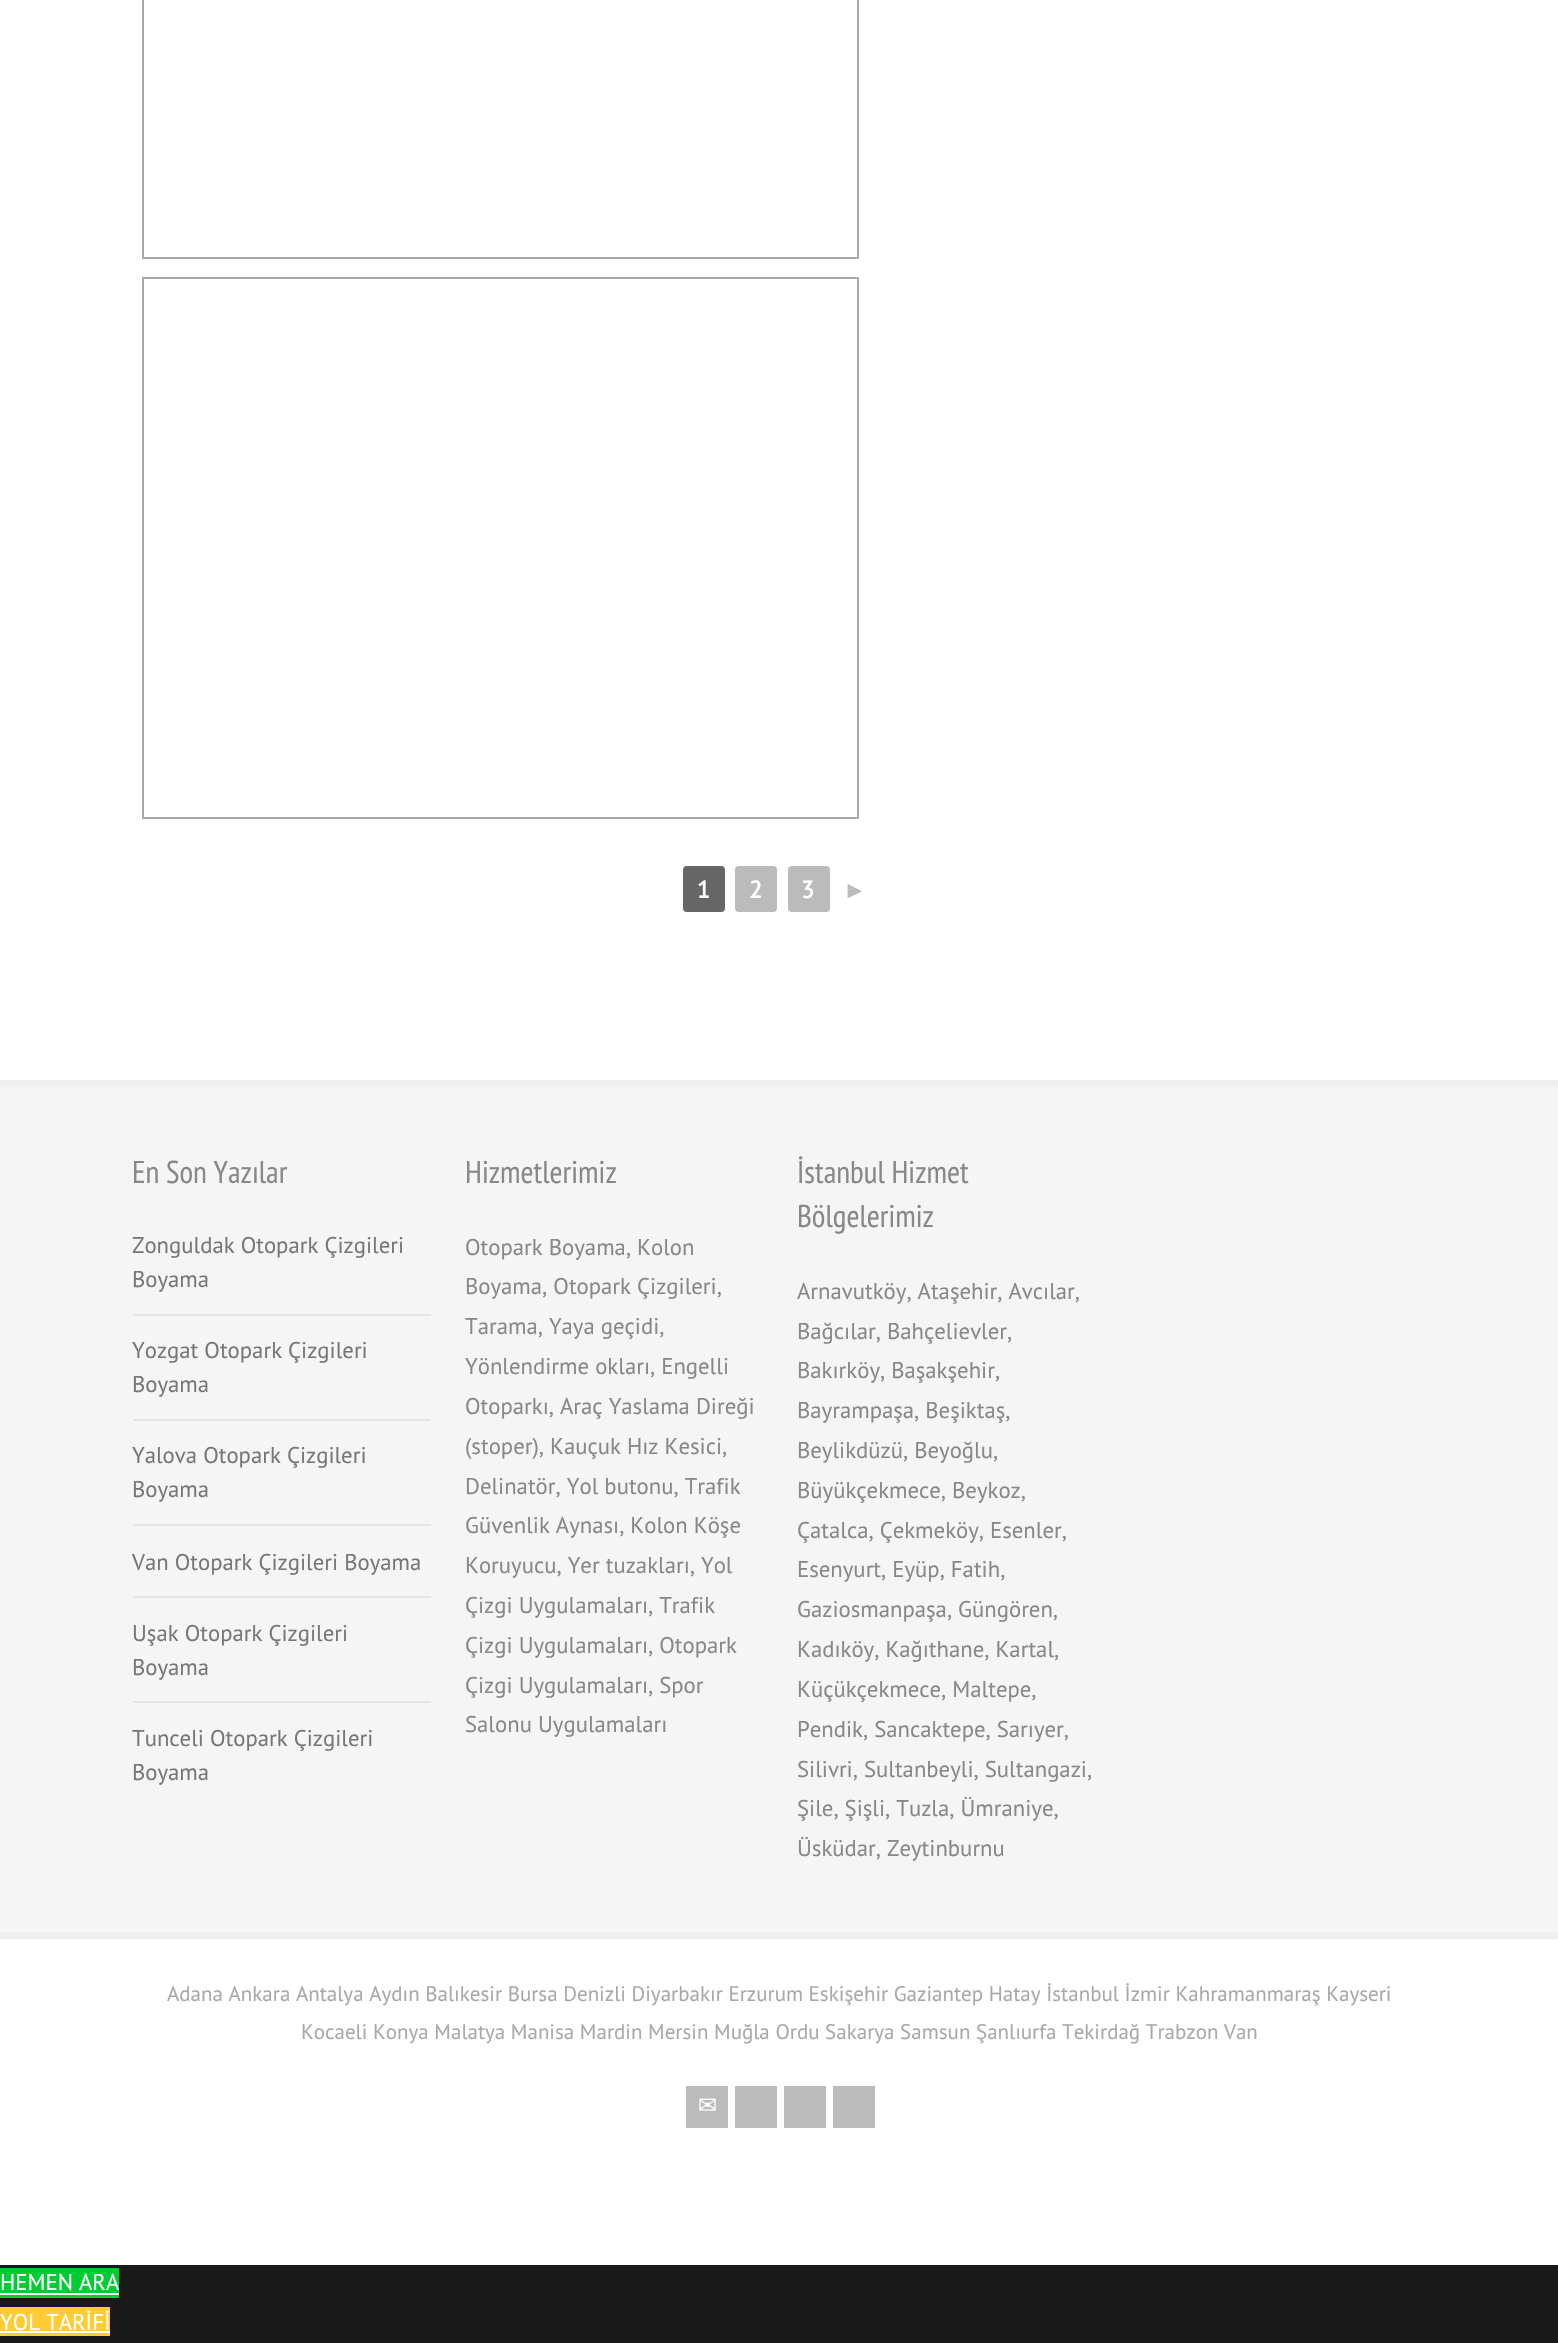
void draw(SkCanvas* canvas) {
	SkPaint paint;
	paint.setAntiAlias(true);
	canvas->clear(0xffffffff);
	paint.setStroke(true);
	paint.setStrokeWidth(2);
	paint.setColor(0xffa9a9a9);
	canvas->drawRect(SkRect::MakeXYWH(143, -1, 715, 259), paint);
	canvas->drawRect(SkRect::MakeXYWH(143, 278, 715, 540), paint);
	paint.setStroke(false);
	paint.setColor(0xff666666);
	canvas->drawRoundRect(SkRect::MakeXYWH(683, 866, 42, 46), 4, 4, paint);
	SkFont f1(fontMgr->matchFamilyStyle("PT Sans", SkFontStyle::Bold()), 24);
	f1.setSubpixel(true);
	paint.setColor(0xffffffff);
	canvas->drawString("1", 697, 898, f1, paint);
	paint.setColor(0xffbbbbbb);
	canvas->drawRoundRect(SkRect::MakeXYWH(735, 866, 42, 46), 4, 4, paint);
	paint.setColor(0xffffffff);
	canvas->drawString("2", 749, 898, f1, paint);
	paint.setColor(0xffbbbbbb);
	canvas->drawRoundRect(SkRect::MakeXYWH(788, 866, 42, 46), 4, 4, paint);
	paint.setColor(0xffffffff);
	canvas->drawString("3", 801, 898, f1, paint);
	SkFont f2(fontMgr->matchFamilyStyle("Liberation Sans", SkFontStyle::Bold()), 24);
	f2.setSubpixel(true);
	paint.setColor(0xffbbbbbb);
	canvas->drawString("►", 843, 898, f2, paint);
	paint.setColor(0xfff5f5f5);
	canvas->drawRect(SkRect::MakeXYWH(0, 1087, 1558, 845), paint);
	paint.setColor(0xfff0f0f0);
	canvas->drawRect(SkRect::MakeXYWH(0, 1080, 1558, 7), paint);
	SkFont f3(fontMgr->matchFamilyStyle("PT Sans Narrow", SkFontStyle::Normal()), 31.5);
	f3.setSubpixel(true);
	paint.setColor(0xff888888);
	canvas->drawString("En Son Yazılar", 132, 1183, f3, paint);
	paint.setColor(0xffe4e4e4);
	canvas->drawRect(SkRect::MakeXYWH(133, 1314, 298, 2), paint);
	SkFont f4(fontMgr->matchFamilyStyle("PT Sans", SkFontStyle::Normal()), 22.75);
	f4.setSubpixel(true);
	paint.setColor(0xff777777);
	canvas->drawString("Zonguldak Otopark Çizgileri", 132, 1253, f4, paint);
	canvas->drawString("Boyama", 132, 1287, f4, paint);
	paint.setColor(0xffe4e4e4);
	canvas->drawRect(SkRect::MakeXYWH(133, 1419, 298, 2), paint);
	paint.setColor(0xff777777);
	canvas->drawString("Yozgat Otopark Çizgileri", 132, 1358, f4, paint);
	canvas->drawString("Boyama", 132, 1392, f4, paint);
	paint.setColor(0xffe4e4e4);
	canvas->drawRect(SkRect::MakeXYWH(133, 1524, 298, 2), paint);
	paint.setColor(0xff777777);
	canvas->drawString("Yalova Otopark Çizgileri", 132, 1463, f4, paint);
	canvas->drawString("Boyama", 132, 1497, f4, paint);
	paint.setColor(0xffe4e4e4);
	canvas->drawRect(SkRect::MakeXYWH(133, 1596, 298, 2), paint);
	paint.setColor(0xff777777);
	canvas->drawString("Van Otopark Çizgileri Boyama", 132, 1570, f4, paint);
	paint.setColor(0xffe4e4e4);
	canvas->drawRect(SkRect::MakeXYWH(133, 1701, 298, 2), paint);
	paint.setColor(0xff777777);
	canvas->drawString("Uşak Otopark Çizgileri", 132, 1641, f4, paint);
	canvas->drawString("Boyama", 132, 1675, f4, paint);
	canvas->drawString("Tunceli Otopark Çizgileri", 132, 1746, f4, paint);
	canvas->drawString("Boyama", 132, 1780, f4, paint);
	paint.setColor(0xff888888);
	canvas->drawString("Hizmetlerimiz", 465, 1183, f3, paint);
	canvas->drawString("Otopark Boyama, Kolon", 465, 1255, f4, paint);
	canvas->drawString("Boyama, Otopark Çizgileri,", 465, 1294, f4, paint);
	canvas->drawString("Tarama, Yaya geçidi,", 465, 1334, f4, paint);
	canvas->drawString("Yönlendirme okları, Engelli", 465, 1374, f4, paint);
	canvas->drawString("Otoparkı, Araç Yaslama Direği", 465, 1414, f4, paint);
	canvas->drawString("(stoper), Kauçuk Hız Kesici,", 465, 1454, f4, paint);
	canvas->drawString("Delinatör, Yol butonu, Trafik", 465, 1494, f4, paint);
	canvas->drawString("Güvenlik Aynası, Kolon Köşe", 465, 1533, f4, paint);
	canvas->drawString("Koruyucu, Yer tuzakları, Yol", 465, 1573, f4, paint);
	canvas->drawString("Çizgi Uygulamaları, Trafik", 465, 1613, f4, paint);
	canvas->drawString("Çizgi Uygulamaları, Otopark", 465, 1653, f4, paint);
	canvas->drawString("Çizgi Uygulamaları, Spor", 465, 1693, f4, paint);
	canvas->drawString("Salonu Uygulamaları", 465, 1732, f4, paint);
	canvas->drawString("İstanbul Hizmet", 797, 1183, f3, paint);
	canvas->drawString("Bölgelerimiz", 797, 1227, f3, paint);
	canvas->drawString("Arnavutköy, Ataşehir, Avcılar,", 797, 1299, f4, paint);
	canvas->drawString("Bağcılar, Bahçelievler,", 797, 1339, f4, paint);
	canvas->drawString("Bakırköy, Başakşehir,", 797, 1378, f4, paint);
	canvas->drawString("Bayrampaşa, Beşiktaş,", 797, 1418, f4, paint);
	canvas->drawString("Beylikdüzü, Beyoğlu,", 797, 1458, f4, paint);
	canvas->drawString("Büyükçekmece, Beykoz,", 797, 1498, f4, paint);
	canvas->drawString("Çatalca, Çekmeköy, Esenler,", 797, 1538, f4, paint);
	canvas->drawString("Esenyurt, Eyüp, Fatih,", 797, 1577, f4, paint);
	canvas->drawString("Gaziosmanpaşa, Güngören,", 797, 1617, f4, paint);
	canvas->drawString("Kadıköy, Kağıthane, Kartal,", 797, 1657, f4, paint);
	canvas->drawString("Küçükçekmece, Maltepe,", 797, 1697, f4, paint);
	canvas->drawString("Pendik, Sancaktepe, Sarıyer,", 797, 1737, f4, paint);
	canvas->drawString("Silivri, Sultanbeyli, Sultangazi,", 797, 1777, f4, paint);
	canvas->drawString("Şile, Şişli, Tuzla, Ümraniye,", 797, 1816, f4, paint);
	canvas->drawString("Üsküdar, Zeytinburnu", 797, 1856, f4, paint);
	paint.setColor(0xfff0f0f0);
	canvas->drawRect(SkRect::MakeXYWH(0, 1932, 1558, 7), paint);
	SkFont f5(fontMgr->matchFamilyStyle("PT Sans", SkFontStyle::Normal()), 21);
	f5.setSubpixel(true);
	paint.setColor(0xffa9a9a9);
	canvas->drawString("Adana Ankara Antalya Aydın Balıkesir Bursa Denizli Diyarbakır Erzurum Eskişehir Gaziantep Hatay İstanbul İzmir Kahramanmaraş Kayseri", 167, 2001, f5, paint);
	canvas->drawString("Kocaeli Konya Malatya Manisa Mardin Mersin Muğla Ordu Sakarya Samsun Şanlıurfa Tekirdağ Trabzon Van", 301, 2039, f5, paint);
	paint.setColor(0xffbbbbbb);
	canvas->drawRect(SkRect::MakeXYWH(686, 2086, 42, 42), paint);
	SkFont f6(fontMgr->matchFamilyStyle("DejaVu Sans", SkFontStyle::Normal()), 22.75);
	f6.setSubpixel(true);
	paint.setColor(0xffffffff);
	canvas->drawString("✉", 698, 2113, f6, paint);
	paint.setColor(0xffbbbbbb);
	canvas->drawRect(SkRect::MakeXYWH(735, 2086, 42, 42), paint);
	canvas->drawRect(SkRect::MakeXYWH(784, 2086, 42, 42), paint);
	canvas->drawRect(SkRect::MakeXYWH(833, 2086, 42, 42), paint);
	paint.setColor(0xff1a1919);
	canvas->drawRect(SkRect::MakeXYWH(0, 2265, 1558, 78), paint);
	paint.setColor(0xff00cc33);
	canvas->drawRect(SkRect::MakeXYWH(0, 2268, 119, 30), paint);
	paint.setColor(0xffffffff);
	canvas->drawString("HEMEN ARA", 0, 2290, f4, paint);
	canvas->drawRect(SkRect::MakeXYWH(0, 2293, 119, 2), paint);
	paint.setColor(0xffffcc33);
	canvas->drawRect(SkRect::MakeXYWH(0, 2307, 110, 29), paint);
	paint.setColor(0xffffffff);
	canvas->drawString("YOL TARİFİ", 0, 2330, f4, paint);
	canvas->drawRect(SkRect::MakeXYWH(0, 2331, 110, 2), paint);
}
